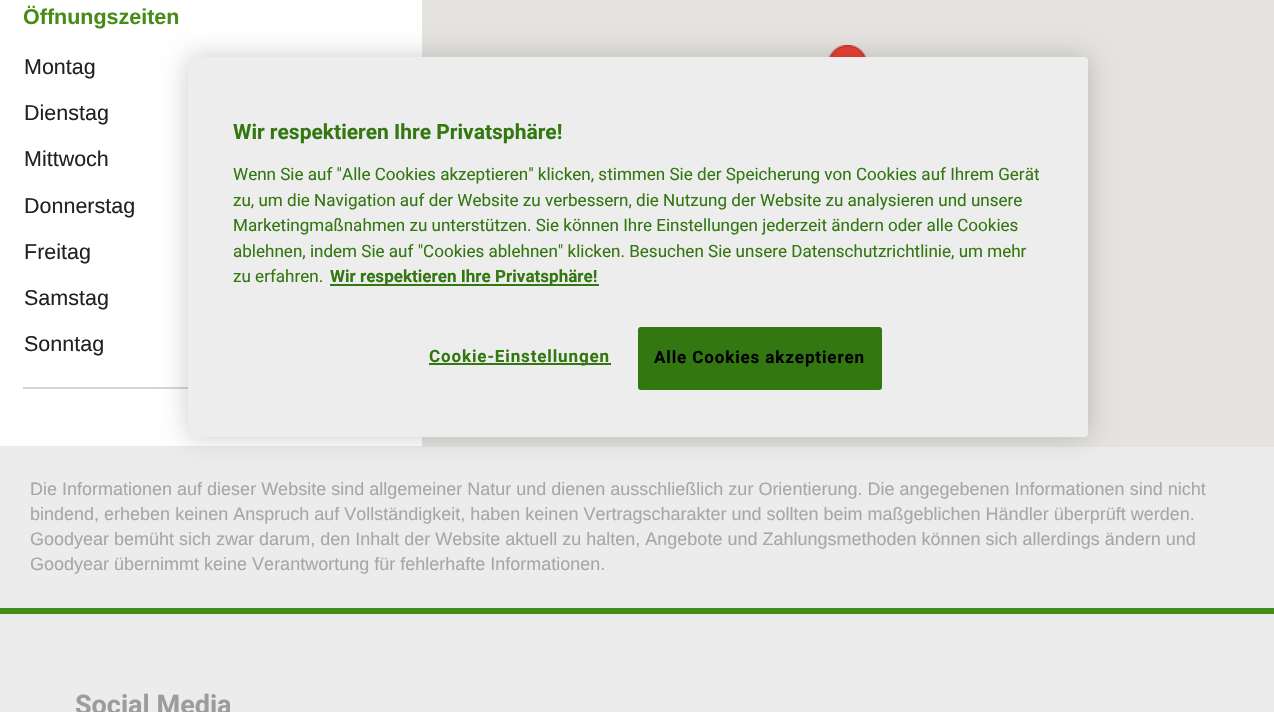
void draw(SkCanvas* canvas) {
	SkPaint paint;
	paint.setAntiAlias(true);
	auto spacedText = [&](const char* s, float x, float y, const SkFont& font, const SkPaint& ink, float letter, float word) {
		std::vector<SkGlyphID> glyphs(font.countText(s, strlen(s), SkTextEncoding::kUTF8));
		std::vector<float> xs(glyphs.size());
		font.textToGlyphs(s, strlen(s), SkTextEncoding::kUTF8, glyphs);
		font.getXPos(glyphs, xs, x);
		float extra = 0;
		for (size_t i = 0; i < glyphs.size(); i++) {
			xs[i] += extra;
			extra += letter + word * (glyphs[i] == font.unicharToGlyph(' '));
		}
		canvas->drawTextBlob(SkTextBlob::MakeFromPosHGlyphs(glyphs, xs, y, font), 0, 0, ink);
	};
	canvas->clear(0xffffffff);
	paint.setColor(0xffececec);
	canvas->drawRect(SkRect::MakeXYWH(0, 446, 422, 1), paint);
	paint.setColor(0xffd5d5d5);
	canvas->drawRect(SkRect::MakeXYWH(23, 387, 165, 2), paint);
	SkFont f1(fontMgr->matchFamilyStyle("Liberation Sans", SkFontStyle::Bold()), 21.5);
	f1.setSubpixel(true);
	paint.setColor(0xff468d17);
	canvas->drawString("Öffnungszeiten", 23, 24, f1, paint);
	SkFont f2(fontMgr->matchFamilyStyle("Liberation Sans", SkFontStyle::Normal()), 21.5);
	f2.setSubpixel(true);
	paint.setColor(0xff222222);
	canvas->drawString("Montag", 24, 74, f2, paint);
	canvas->drawString("Dienstag", 24, 120, f2, paint);
	canvas->drawString("Mittwoch", 24, 166, f2, paint);
	canvas->drawString("Donnerstag", 24, 213, f2, paint);
	canvas->drawString("Freitag", 24, 259, f2, paint);
	canvas->drawString("Samstag", 24, 305, f2, paint);
	canvas->drawString("Sonntag", 24, 351, f2, paint);
	paint.setColor(0xffe5e3df);
	canvas->drawRect(SkRect::MakeXYWH(422, 0, 852, 447), paint);
	canvas->drawImageRect(SkImages::DeferredFromEncodedData(SkData::MakeFromFileName("img1.png")), SkRect::MakeXYWH(829, 45, 37, 12), SkSamplingOptions());
	paint.setColor(0xffececec);
	canvas->drawRect(SkRect::MakeXYWH(0, 447, 1274, 161), paint);
	SkFont f3(fontMgr->matchFamilyStyle("Liberation Sans", SkFontStyle::Normal()), 18);
	f3.setSubpixel(true);
	paint.setColor(0xffa7a7a7);
	canvas->drawString("Die Informationen auf dieser Website sind allgemeiner Natur und dienen ausschließlich zur Orientierung. Die angegebenen Informationen sind nicht", 30, 495, f3, paint);
	canvas->drawString("bindend, erheben keinen Anspruch auf Vollständigkeit, haben keinen Vertragscharakter und sollten beim maßgeblichen Händler überprüft werden.", 30, 520, f3, paint);
	canvas->drawString("Goodyear bemüht sich zwar darum, den Inhalt der Website aktuell zu halten, Angebote und Zahlungsmethoden können sich allerdings ändern und", 30, 545, f3, paint);
	canvas->drawString("Goodyear übernimmt keine Verantwortung für fehlerhafte Informationen.", 30, 570, f3, paint);
	paint.setColor(0x33000000);
	paint.setMaskFilter(SkMaskFilter::MakeBlur(kNormal_SkBlurStyle, 13.5));
	canvas->drawRoundRect(SkRect::MakeXYWH(188, 57, 900, 380), 4, 4, paint);
	paint.setMaskFilter(nullptr);
	paint.setColor(0xffededed);
	canvas->drawRoundRect(SkRect::MakeXYWH(188, 57, 900, 380), 4, 4, paint);
	SkFont f4(fontMgr->matchFamilyStyle("Roboto", SkFontStyle::Bold()), 21);
	f4.setSubpixel(true);
	paint.setColor(0xff337711);
	canvas->drawString("Wir respektieren Ihre Privatsphäre!", 233, 139, f4, paint);
	SkFont f5(fontMgr->matchFamilyStyle("Roboto", SkFontStyle::Normal()), 17.05);
	f5.setSubpixel(true);
	canvas->drawString("Wenn Sie auf \"Alle Cookies akzeptieren\" klicken, stimmen Sie der Speicherung von Cookies auf Ihrem Gerät", 233, 180, f5, paint);
	canvas->drawString("zu, um die Navigation auf der Website zu verbessern, die Nutzung der Website zu analysieren und unsere", 233, 206, f5, paint);
	canvas->drawString("Marketingmaßnahmen zu unterstützen. Sie können Ihre Einstellungen jederzeit ändern oder alle Cookies", 233, 231, f5, paint);
	canvas->drawString("ablehnen, indem Sie auf \"Cookies ablehnen\" klicken. Besuchen Sie unsere Datenschutzrichtlinie, um mehr", 233, 257, f5, paint);
	canvas->drawString("zu erfahren.", 233, 282, f5, paint);
	canvas->drawRect(SkRect::MakeXYWH(330, 284, 269, 2), paint);
	SkFont f6(fontMgr->matchFamilyStyle("Roboto", SkFontStyle::Bold()), 17.05);
	f6.setSubpixel(true);
	canvas->drawString("Wir respektieren Ihre Privatsphäre!", 330, 282, f6, paint);
	canvas->drawRect(SkRect::MakeXYWH(429, 363, 182, 2), paint);
	spacedText("Cookie-Einstellungen", 429, 362, f6, paint, 0.85, 0);
	canvas->drawRoundRect(SkRect::MakeXYWH(639, 328, 242, 61), 2, 2, paint);
	paint.setStroke(true);
	paint.setStrokeWidth(2);
	canvas->drawRoundRect(SkRect::MakeXYWH(639, 328, 242, 61), 2, 2, paint);
	paint.setStroke(false);
	paint.setColor(0xff000000);
	spacedText("Alle Cookies akzeptieren", 654, 363, f6, paint, 0.85, 0);
	paint.setColor(0xffececec);
	canvas->drawRect(SkRect::MakeXYWH(0, 614, 1274, 98), paint);
	paint.setColor(0xff468d17);
	canvas->drawRect(SkRect::MakeXYWH(0, 608, 1274, 6), paint);
	SkFont f7(fontMgr->matchFamilyStyle("Roboto", SkFontStyle::Bold()), 27);
	f7.setSubpixel(true);
	paint.setColor(0xff9c9c9c);
	canvas->drawString("Social Media", 75, 714, f7, paint);
}
